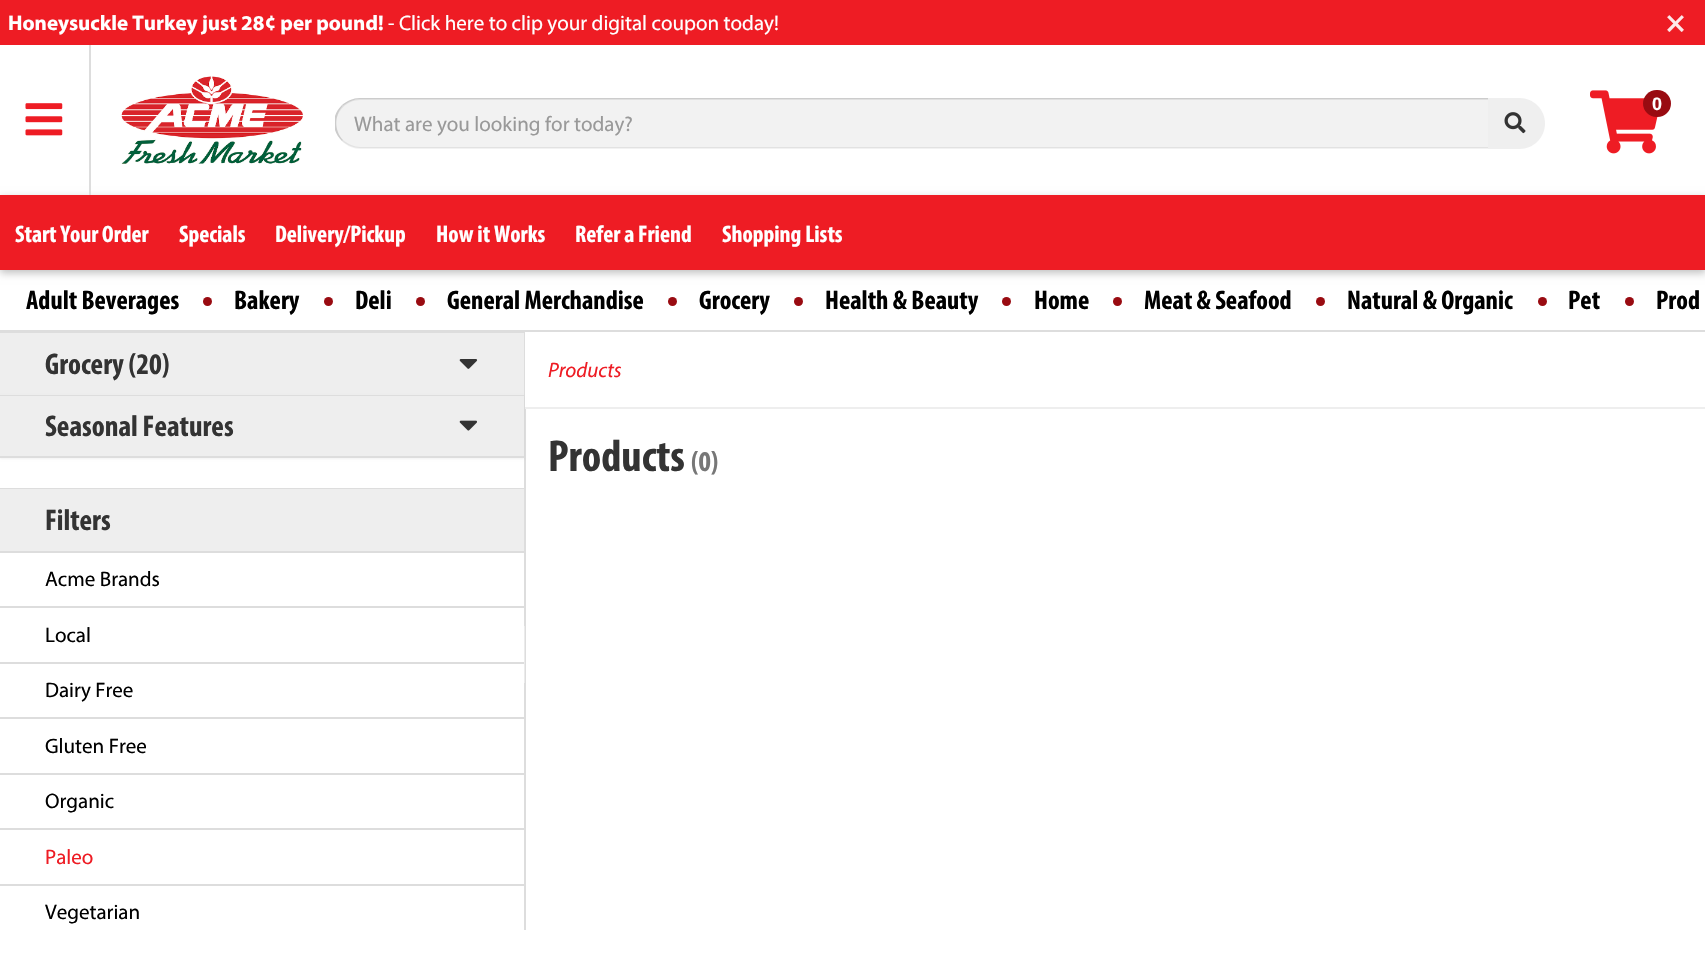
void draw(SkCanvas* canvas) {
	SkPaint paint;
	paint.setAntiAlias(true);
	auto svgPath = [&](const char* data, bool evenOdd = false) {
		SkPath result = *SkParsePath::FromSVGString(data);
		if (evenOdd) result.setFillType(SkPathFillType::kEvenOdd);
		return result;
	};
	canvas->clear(0xffffffff);
	paint.setColor(0xffee1c24);
	canvas->drawRect(SkRect::MakeXYWH(0, 0, 1705, 45), paint);
	SkFont f1(fontMgr->matchFamilyStyle("Myriad", SkFontStyle::Bold()), 21);
	f1.setSubpixel(true);
	paint.setColor(0xffffffff);
	canvas->drawString("Honeysuckle Turkey just 28¢ per pound!", 8, 30, f1, paint);
	SkFont f2(fontMgr->matchFamilyStyle("Myriad", SkFontStyle::Normal()), 21);
	f2.setSubpixel(true);
	canvas->drawString("- Click here to clip your digital coupon today!", 388, 30, f2, paint);
	SkFont f3(fontMgr->matchFamilyStyle("Myriad", SkFontStyle::Bold()), 32);
	f3.setSubpixel(true);
	paint.setColor(0xfffde8e9);
	canvas->drawString("×", 1666, 32, f3, paint);
	paint.setColor(0x40000000);
	paint.setMaskFilter(SkMaskFilter::MakeBlur(kNormal_SkBlurStyle, 4));
	canvas->drawRect(SkRect::MakeXYWH(0, 198, 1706, 75), paint);
	paint.setMaskFilter(nullptr);
	paint.setColor(0xffdddddd);
	canvas->drawRect(SkRect::MakeXYWH(89, 45, 2, 150), paint);
	canvas->drawImageRect(SkImages::DeferredFromEncodedData(SkData::MakeFromFileName("img1.png")), SkRect::MakeXYWH(25, 103, 38, 33), SkSamplingOptions());
	canvas->drawImageRect(SkImages::DeferredFromEncodedData(SkData::MakeFromFileName("img2.png")), SkRect::MakeXYWH(121, 76, 182, 88), SkSamplingOptions());
	canvas->drawImageRect(SkImages::DeferredFromEncodedData(SkData::MakeFromFileName("img3.png")), SkRect::MakeXYWH(1590, 90, 68, 64), SkSamplingOptions());
	paint.setColor(0xff990b11);
	canvas->drawRoundRect(SkRect::MakeXYWH(1643, 90, 28, 27), 13.5, 13.5, paint);
	SkFont f4(fontMgr->matchFamilyStyle("Liberation Sans", SkFontStyle::Bold()), 18);
	f4.setSubpixel(true);
	paint.setColor(0xffffffff);
	canvas->drawString("0", 1652, 110, f4, paint);
	paint.setColor(0xfff2f2f2);
	canvas->drawPath(svgPath("M360.5 98H1490V149H360.5C346.5 149 335 137.5 335 123.5C335 109.5 346.5 98 360.5 98Z"), paint);
	paint.setColor(0xffe0e0e0);
	canvas->drawPath(svgPath("M360 100H1488V99H360C347 99 336 110 336 123V124C336 111 347 100 360 100Z"), paint);
	paint.setColor(0xffcccccc);
	canvas->drawPath(svgPath("M360 98C353 98 347 101 342 105L343 106C348 102 354 99 360 99H1488L1489 98Z"), paint);
	paint.setColor(0xffe2e2e2);
	canvas->drawPath(svgPath("M1489 148H360C353 148 347 145 342 141L343 140C348 144 354 147 360 147H1488Z"), paint);
	canvas->save();
	canvas->clipRect(SkRect::MakeXYWH(335, 45, 1210, 104));
	paint.setColor(0xffcccccc);
	canvas->drawPath(svgPath("M334.5 118C335.5 113 338.5 108.5 342 105L343 106C334 115.5 334 130.5 343 140L342 141C338.5 137.5 335.5 133 334.5 128Z"), paint);
	canvas->restore();
	paint.setColor(0xff999999);
	canvas->drawString("What are you looking for today?", 354, 131, f2, paint);
	paint.setColor(0xffefefef);
	canvas->drawPath(svgPath("M1488 98H1519.5C1533.5 98 1545 109.5 1545 123.5C1545 137.5 1533.5 149 1519.5 149H1488Z"), paint);
	canvas->drawImageRect(SkImages::DeferredFromEncodedData(SkData::MakeFromFileName("img4.png")), SkRect::MakeXYWH(1504, 112, 22, 22), SkSamplingOptions());
	paint.setColor(0xffee1c24);
	canvas->drawRect(SkRect::MakeXYWH(0, 195, 1705, 75), paint);
	SkFont f5(fontMgr->matchFamilyStyle("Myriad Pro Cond", SkFontStyle::Bold()), 24);
	f5.setSubpixel(true);
	paint.setColor(0xffffffff);
	canvas->drawString("Start Your Order", 15, 242, f5, paint);
	canvas->drawString("Specials", 179, 242, f5, paint);
	canvas->drawString("Delivery/Pickup", 275, 242, f5, paint);
	canvas->drawString("How it Works", 436, 242, f5, paint);
	canvas->drawString("Refer a Friend", 575, 242, f5, paint);
	canvas->drawString("Shopping Lists", 722, 242, f5, paint);
	SkFont f6(fontMgr->matchFamilyStyle("Myriad Pro Cond", SkFontStyle::Bold()), 27);
	f6.setSubpixel(true);
	paint.setColor(0xff000000);
	canvas->drawString("Adult Beverages", 26, 309, f6, paint);
	paint.setColor(0xff990b11);
	canvas->drawCircle(207.5, 301.5, 4.5, paint);
	paint.setColor(0xff000000);
	canvas->drawString("Bakery", 234, 309, f6, paint);
	paint.setColor(0xff990b11);
	canvas->drawCircle(328.5, 301.5, 4.5, paint);
	paint.setColor(0xff000000);
	canvas->drawString("Deli", 355, 309, f6, paint);
	paint.setColor(0xff990b11);
	canvas->drawCircle(420.5, 301.5, 4.5, paint);
	paint.setColor(0xff000000);
	canvas->drawString("General Merchandise", 447, 309, f6, paint);
	paint.setColor(0xff990b11);
	canvas->drawCircle(672.5, 301.5, 4.5, paint);
	paint.setColor(0xff000000);
	canvas->drawString("Grocery", 699, 309, f6, paint);
	paint.setColor(0xff990b11);
	canvas->drawCircle(798.5, 301.5, 4.5, paint);
	paint.setColor(0xff000000);
	canvas->drawString("Health & Beauty", 825, 309, f6, paint);
	paint.setColor(0xff990b11);
	canvas->drawCircle(1006.5, 301.5, 4.5, paint);
	paint.setColor(0xff000000);
	canvas->drawString("Home", 1034, 309, f6, paint);
	paint.setColor(0xff990b11);
	canvas->drawCircle(1117.5, 301.5, 4.5, paint);
	paint.setColor(0xff000000);
	canvas->drawString("Meat & Seafood", 1144, 309, f6, paint);
	paint.setColor(0xff990b11);
	canvas->drawCircle(1320.5, 301.5, 4.5, paint);
	paint.setColor(0xff000000);
	canvas->drawString("Natural & Organic", 1347, 309, f6, paint);
	paint.setColor(0xff990b11);
	canvas->drawCircle(1542.5, 301.5, 4.5, paint);
	paint.setColor(0xff000000);
	canvas->drawString("Pet", 1568, 309, f6, paint);
	paint.setColor(0xff990b11);
	canvas->drawCircle(1629.5, 301.5, 4.5, paint);
	paint.setColor(0xff000000);
	canvas->drawString("Prod", 1656, 309, f6, paint);
	paint.setColor(0xffdddddd);
	canvas->drawRect(SkRect::MakeXYWH(0, 330, 1705, 2), paint);
	canvas->drawRect(SkRect::MakeXYWH(524, 332, 2, 598), paint);
	paint.setColor(0xffebebeb);
	canvas->drawRect(SkRect::MakeXYWH(524, 626, 1, 57), paint);
	paint.setColor(0xffdddddd);
	canvas->drawRect(SkRect::MakeXYWH(0, 332, 524, 1), paint);
	paint.setColor(0xffeeeeee);
	canvas->drawRect(SkRect::MakeXYWH(0, 333, 524, 62), paint);
	SkFont f7(fontMgr->matchFamilyStyle("Myriad Pro Cond", SkFontStyle::Bold()), 30);
	f7.setSubpixel(true);
	paint.setColor(0xff333333);
	canvas->drawString("Grocery (20)", 45, 374, f7, paint);
	canvas->drawImageRect(SkImages::DeferredFromEncodedData(SkData::MakeFromFileName("img5.png")), SkRect::MakeXYWH(459, 359, 19, 10), SkSamplingOptions());
	paint.setColor(0x0d000000);
	paint.setMaskFilter(SkMaskFilter::MakeBlur(kNormal_SkBlurStyle, 1));
	canvas->drawRect(SkRect::MakeXYWH(0, 396, 524, 63), paint);
	paint.setMaskFilter(nullptr);
	paint.setColor(0xffdddddd);
	canvas->drawRect(SkRect::MakeXYWH(0, 395, 524, 1), paint);
	canvas->drawRect(SkRect::MakeXYWH(0, 456, 524, 2), paint);
	paint.setColor(0xffeeeeee);
	canvas->drawRect(SkRect::MakeXYWH(0, 396, 524, 60), paint);
	paint.setColor(0xff333333);
	canvas->drawString("Seasonal Features", 45, 436, f7, paint);
	canvas->drawImageRect(SkImages::DeferredFromEncodedData(SkData::MakeFromFileName("img6.png")), SkRect::MakeXYWH(459, 420, 18, 11), SkSamplingOptions());
	paint.setColor(0xffdddddd);
	canvas->drawRect(SkRect::MakeXYWH(0, 488, 524, 1), paint);
	paint.setColor(0xffeeeeee);
	canvas->drawRect(SkRect::MakeXYWH(0, 489, 524, 62), paint);
	paint.setColor(0xff333333);
	canvas->drawString("Filters", 45, 530, f7, paint);
	paint.setColor(0xffdddddd);
	canvas->drawRect(SkRect::MakeXYWH(0, 551, 524, 2), paint);
	canvas->drawRect(SkRect::MakeXYWH(0, 606, 524, 2), paint);
	paint.setColor(0xff000000);
	canvas->drawString("Acme Brands", 45, 586, f2, paint);
	canvas->drawString("Local", 45, 642, f2, paint);
	paint.setColor(0xffdddddd);
	canvas->drawRect(SkRect::MakeXYWH(0, 662, 524, 2), paint);
	canvas->drawRect(SkRect::MakeXYWH(0, 717, 524, 2), paint);
	paint.setColor(0xff000000);
	canvas->drawString("Dairy Free", 45, 697, f2, paint);
	canvas->drawString("Gluten Free", 45, 753, f2, paint);
	paint.setColor(0xffdddddd);
	canvas->drawRect(SkRect::MakeXYWH(0, 773, 524, 2), paint);
	canvas->drawRect(SkRect::MakeXYWH(0, 828, 524, 2), paint);
	paint.setColor(0xff000000);
	canvas->drawString("Organic", 45, 808, f2, paint);
	paint.setColor(0xffee1c24);
	canvas->drawString("Paleo", 45, 864, f2, paint);
	paint.setColor(0xffdddddd);
	canvas->drawRect(SkRect::MakeXYWH(0, 884, 524, 2), paint);
	paint.setColor(0xff000000);
	canvas->drawString("Vegetarian", 45, 919, f2, paint);
	paint.setColor(0xffeeeeee);
	canvas->drawRect(SkRect::MakeXYWH(525, 407, 1180, 2), paint);
	paint.setColor(0xffffffff);
	canvas->drawRect(SkRect::MakeXYWH(525, 332, 1, 75), paint);
	SkFont f8(fontMgr->matchFamilyStyle("Myriad", SkFontStyle::Italic()), 21);
	f8.setSubpixel(true);
	paint.setColor(0xffee1c24);
	canvas->drawString("Products", 548, 377, f8, paint);
	SkFont f9(fontMgr->matchFamilyStyle("Myriad Pro Cond", SkFontStyle::Bold()), 45);
	f9.setSubpixel(true);
	paint.setColor(0xff333333);
	canvas->drawString("Products", 548, 471, f9, paint);
	SkFont f10(fontMgr->matchFamilyStyle("Myriad Pro Cond", SkFontStyle::Bold()), 29);
	f10.setSubpixel(true);
	paint.setColor(0xff777777);
	canvas->drawString("(0)", 691, 471, f10, paint);
}
